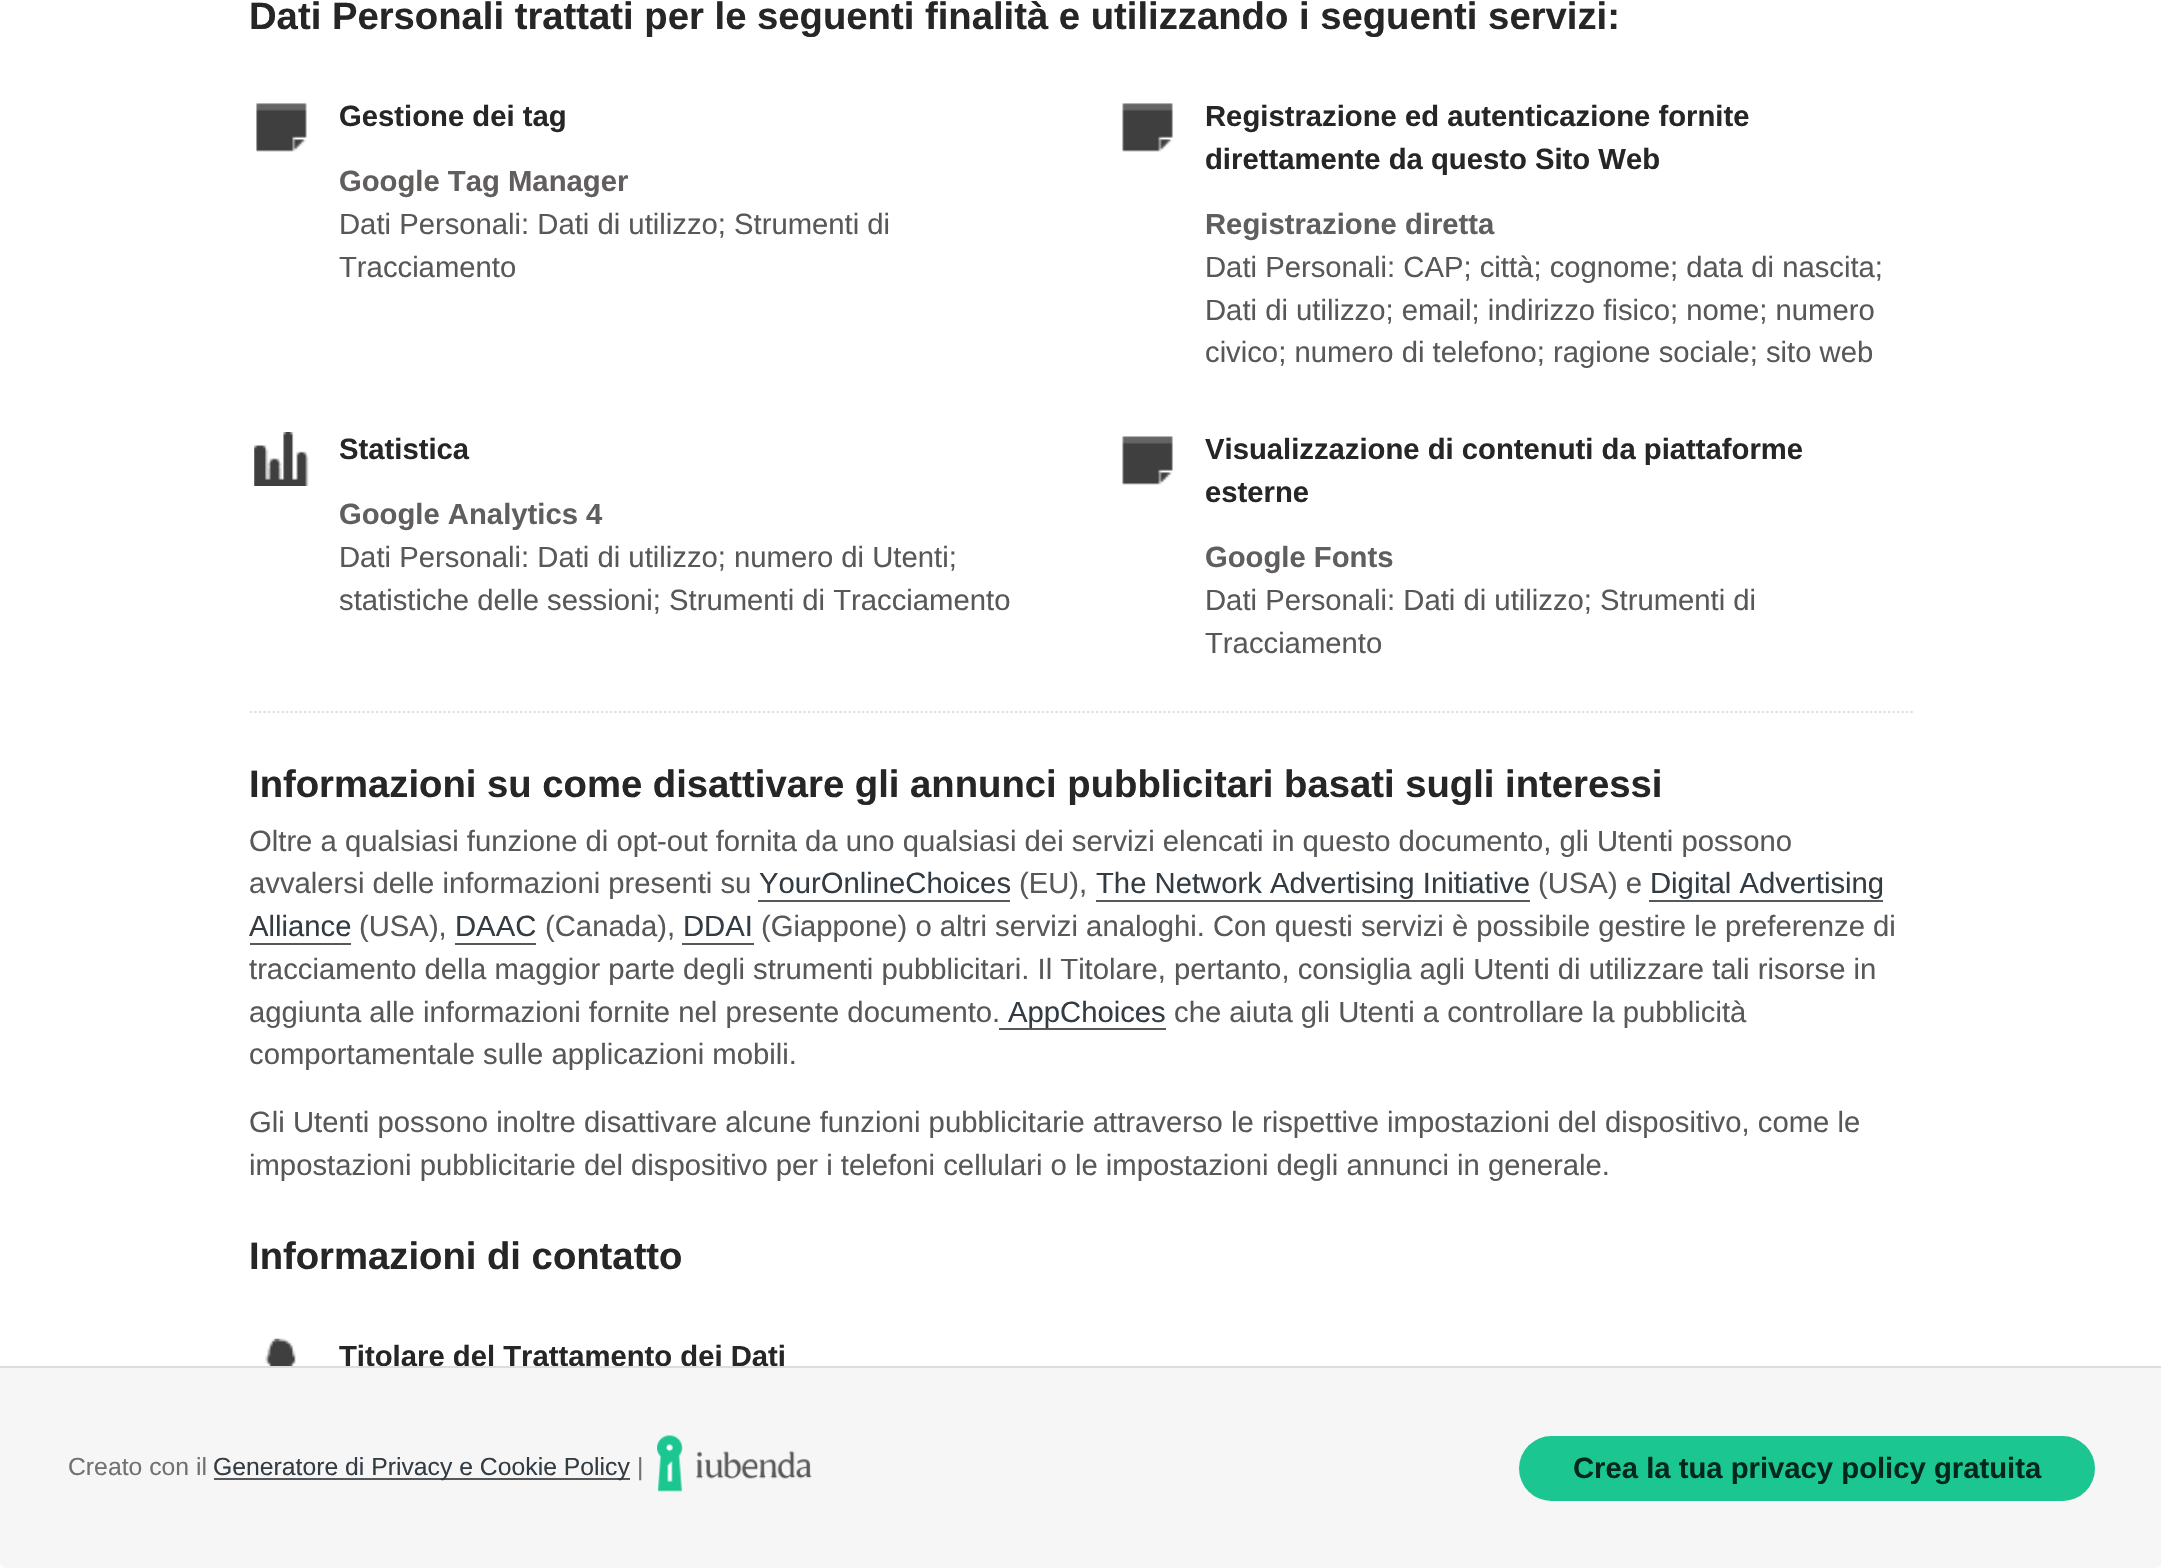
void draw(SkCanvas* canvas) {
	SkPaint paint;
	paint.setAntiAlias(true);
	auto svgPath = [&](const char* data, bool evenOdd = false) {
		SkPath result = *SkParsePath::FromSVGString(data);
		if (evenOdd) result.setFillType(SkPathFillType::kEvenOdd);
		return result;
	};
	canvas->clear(0xffffffff);
	SkFont f1(fontMgr->matchFamilyStyle("Liberation Sans", SkFontStyle::Bold()), 38.25);
	f1.setSubpixel(true);
	paint.setColor(0xff262626);
	canvas->drawString("Dati Personali trattati per le seguenti finalità e utilizzando i seguenti servizi:", 249, 29, f1, paint);
	paint.setStroke(true);
	paint.setStrokeWidth(2.2);
	paint.setColor(0xffdfdfdf);
	paint.setPathEffect(SkDashPathEffect::Make({{2.25f, 2.25f}}, 0));
	canvas->drawPath(svgPath("M250 712H1915"), paint);
	paint.setPathEffect(nullptr);
	canvas->drawImageRect(SkImages::DeferredFromEncodedData(SkData::MakeFromFileName("img1.png")), SkRect::MakeXYWH(256, 103, 51, 49), SkSamplingOptions());
	SkFont f2(fontMgr->matchFamilyStyle("Liberation Sans", SkFontStyle::Bold()), 29.25);
	f2.setSubpixel(true);
	paint.setStroke(false);
	paint.setColor(0xff262626);
	canvas->drawString("Gestione dei tag", 339, 126, f2, paint);
	paint.setColor(0xff615e5e);
	canvas->drawString("Google Tag Manager", 339, 191, f2, paint);
	SkFont f3(fontMgr->matchFamilyStyle("Liberation Sans", SkFontStyle::Normal()), 29.25);
	f3.setSubpixel(true);
	paint.setColor(0xff595858);
	canvas->drawString("Dati Personali: Dati di utilizzo; Strumenti di", 339, 234, f3, paint);
	canvas->drawString("Tracciamento", 339, 277, f3, paint);
	canvas->drawImageRect(SkImages::DeferredFromEncodedData(SkData::MakeFromFileName("img2.png")), SkRect::MakeXYWH(1122, 103, 51, 49), SkSamplingOptions());
	paint.setColor(0xff262626);
	canvas->drawString("Registrazione ed autenticazione fornite", 1205, 126, f2, paint);
	canvas->drawString("direttamente da questo Sito Web", 1205, 169, f2, paint);
	paint.setColor(0xff615e5e);
	canvas->drawString("Registrazione diretta", 1205, 234, f2, paint);
	paint.setColor(0xff595858);
	canvas->drawString("Dati Personali: CAP; città; cognome; data di nascita;", 1205, 277, f3, paint);
	canvas->drawString("Dati di utilizzo; email; indirizzo fisico; nome; numero", 1205, 320, f3, paint);
	canvas->drawString("civico; numero di telefono; ragione sociale; sito web", 1205, 362, f3, paint);
	canvas->drawImageRect(SkImages::DeferredFromEncodedData(SkData::MakeFromFileName("img3.png")), SkRect::MakeXYWH(254, 432, 55, 54), SkSamplingOptions());
	paint.setColor(0xff262626);
	canvas->drawString("Statistica", 339, 459, f2, paint);
	paint.setColor(0xff615e5e);
	canvas->drawString("Google Analytics 4", 339, 524, f2, paint);
	paint.setColor(0xff595858);
	canvas->drawString("Dati Personali: Dati di utilizzo; numero di Utenti;", 339, 567, f3, paint);
	canvas->drawString("statistiche delle sessioni; Strumenti di Tracciamento", 339, 610, f3, paint);
	canvas->drawImageRect(SkImages::DeferredFromEncodedData(SkData::MakeFromFileName("img2.png")), SkRect::MakeXYWH(1122, 436, 51, 49), SkSamplingOptions());
	paint.setColor(0xff262626);
	canvas->drawString("Visualizzazione di contenuti da piattaforme", 1205, 459, f2, paint);
	canvas->drawString("esterne", 1205, 502, f2, paint);
	paint.setColor(0xff615e5e);
	canvas->drawString("Google Fonts", 1205, 567, f2, paint);
	paint.setColor(0xff595858);
	canvas->drawString("Dati Personali: Dati di utilizzo; Strumenti di", 1205, 610, f3, paint);
	canvas->drawString("Tracciamento", 1205, 653, f3, paint);
	paint.setColor(0xff262626);
	canvas->drawString("Informazioni su come disattivare gli annunci pubblicitari basati sugli interessi", 249, 797, f1, paint);
	paint.setColor(0xff595858);
	canvas->drawString("Oltre a qualsiasi funzione di opt-out fornita da uno qualsiasi dei servizi elencati in questo documento, gli Utenti possono", 249, 851, f3, paint);
	canvas->drawString("avvalersi delle informazioni presenti su", 249, 893, f3, paint);
	paint.setColor(0xff333b43);
	canvas->drawString("YourOnlineChoices", 759, 893, f3, paint);
	paint.setColor(0xff595858);
	canvas->drawRect(SkRect::MakeXYWH(758, 900, 252, 2), paint);
	canvas->drawString("(EU),", 1019, 893, f3, paint);
	paint.setColor(0xff333b43);
	canvas->drawString("The Network Advertising Initiative", 1096, 893, f3, paint);
	paint.setColor(0xff595858);
	canvas->drawRect(SkRect::MakeXYWH(1096, 900, 434, 2), paint);
	canvas->drawString("(USA) e", 1538, 893, f3, paint);
	paint.setColor(0xff333b43);
	canvas->drawString("Digital Advertising", 1650, 893, f3, paint);
	paint.setColor(0xff595858);
	canvas->drawRect(SkRect::MakeXYWH(1649, 900, 234, 2), paint);
	paint.setColor(0xff333b43);
	canvas->drawString("Alliance", 249, 936, f3, paint);
	paint.setColor(0xff595858);
	canvas->drawRect(SkRect::MakeXYWH(250, 943, 101, 2), paint);
	canvas->drawString("(USA),", 359, 936, f3, paint);
	paint.setColor(0xff333b43);
	canvas->drawString("DAAC", 455, 936, f3, paint);
	paint.setColor(0xff595858);
	canvas->drawRect(SkRect::MakeXYWH(455, 943, 81, 2), paint);
	canvas->drawString("(Canada),", 545, 936, f3, paint);
	paint.setColor(0xff333b43);
	canvas->drawString("DDAI", 683, 936, f3, paint);
	paint.setColor(0xff595858);
	canvas->drawRect(SkRect::MakeXYWH(682, 943, 72, 2), paint);
	canvas->drawString("(Giappone) o altri servizi analoghi. Con questi servizi è possibile gestire le preferenze di", 761, 936, f3, paint);
	canvas->drawString("tracciamento della maggior parte degli strumenti pubblicitari. Il Titolare, pertanto, consiglia agli Utenti di utilizzare tali risorse in", 249, 979, f3, paint);
	canvas->drawString("aggiunta alle informazioni fornite nel presente documento.", 249, 1022, f3, paint);
	canvas->drawRect(SkRect::MakeXYWH(999, 1028, 167, 2), paint);
	paint.setColor(0xff333b43);
	canvas->drawString("AppChoices", 1008, 1022, f3, paint);
	paint.setColor(0xff595858);
	canvas->drawString("che aiuta gli Utenti a controllare la pubblicità", 1174, 1022, f3, paint);
	canvas->drawString("comportamentale sulle applicazioni mobili.", 249, 1064, f3, paint);
	canvas->drawString("Gli Utenti possono inoltre disattivare alcune funzioni pubblicitarie attraverso le rispettive impostazioni del dispositivo, come le", 249, 1132, f3, paint);
	canvas->drawString("impostazioni pubblicitarie del dispositivo per i telefoni cellulari o le impostazioni degli annunci in generale.", 249, 1175, f3, paint);
	paint.setColor(0xff262626);
	canvas->drawString("Informazioni di contatto", 249, 1269, f1, paint);
	canvas->drawImageRect(SkImages::DeferredFromEncodedData(SkData::MakeFromFileName("img4.png")), SkRect::MakeXYWH(265, 1338, 31, 28), SkSamplingOptions());
	canvas->drawString("Titolare del Trattamento dei Dati", 339, 1366, f2, paint);
	paint.setColor(0xfff6f6f6);
	canvas->drawPath(svgPath("M0 1366H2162V1561C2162 1565 2159 1568 2155 1568H7C3 1568 0 1565 0 1561Z"), paint);
	paint.setColor(0xffdddddd);
	canvas->drawRect(SkRect::MakeXYWH(0, 1366, 2161, 2), paint);
	SkFont f4(fontMgr->matchFamilyStyle("Liberation Sans", SkFontStyle::Normal()), 24.75);
	f4.setSubpixel(true);
	paint.setColor(0xff717171);
	canvas->drawString("Creato con il", 68, 1475, f4, paint);
	paint.setColor(0xff595858);
	canvas->drawRect(SkRect::MakeXYWH(214, 1478, 416, 2), paint);
	paint.setColor(0xff333b43);
	canvas->drawString("Generatore di Privacy e Cookie Policy", 213, 1475, f4, paint);
	paint.setColor(0xff717171);
	canvas->drawString("|", 637, 1475, f4, paint);
	canvas->drawImageRect(SkImages::DeferredFromEncodedData(SkData::MakeFromFileName("img5.png")), SkRect::MakeXYWH(657, 1435, 155, 57), SkSamplingOptions());
	paint.setColor(0xff1cc691);
	canvas->drawRoundRect(SkRect::MakeXYWH(1519, 1436, 576, 65), 32.5, 32.5, paint);
	paint.setColor(0xff01281b);
	canvas->drawString("Crea la tua privacy policy gratuita", 1573, 1478, f2, paint);
}
